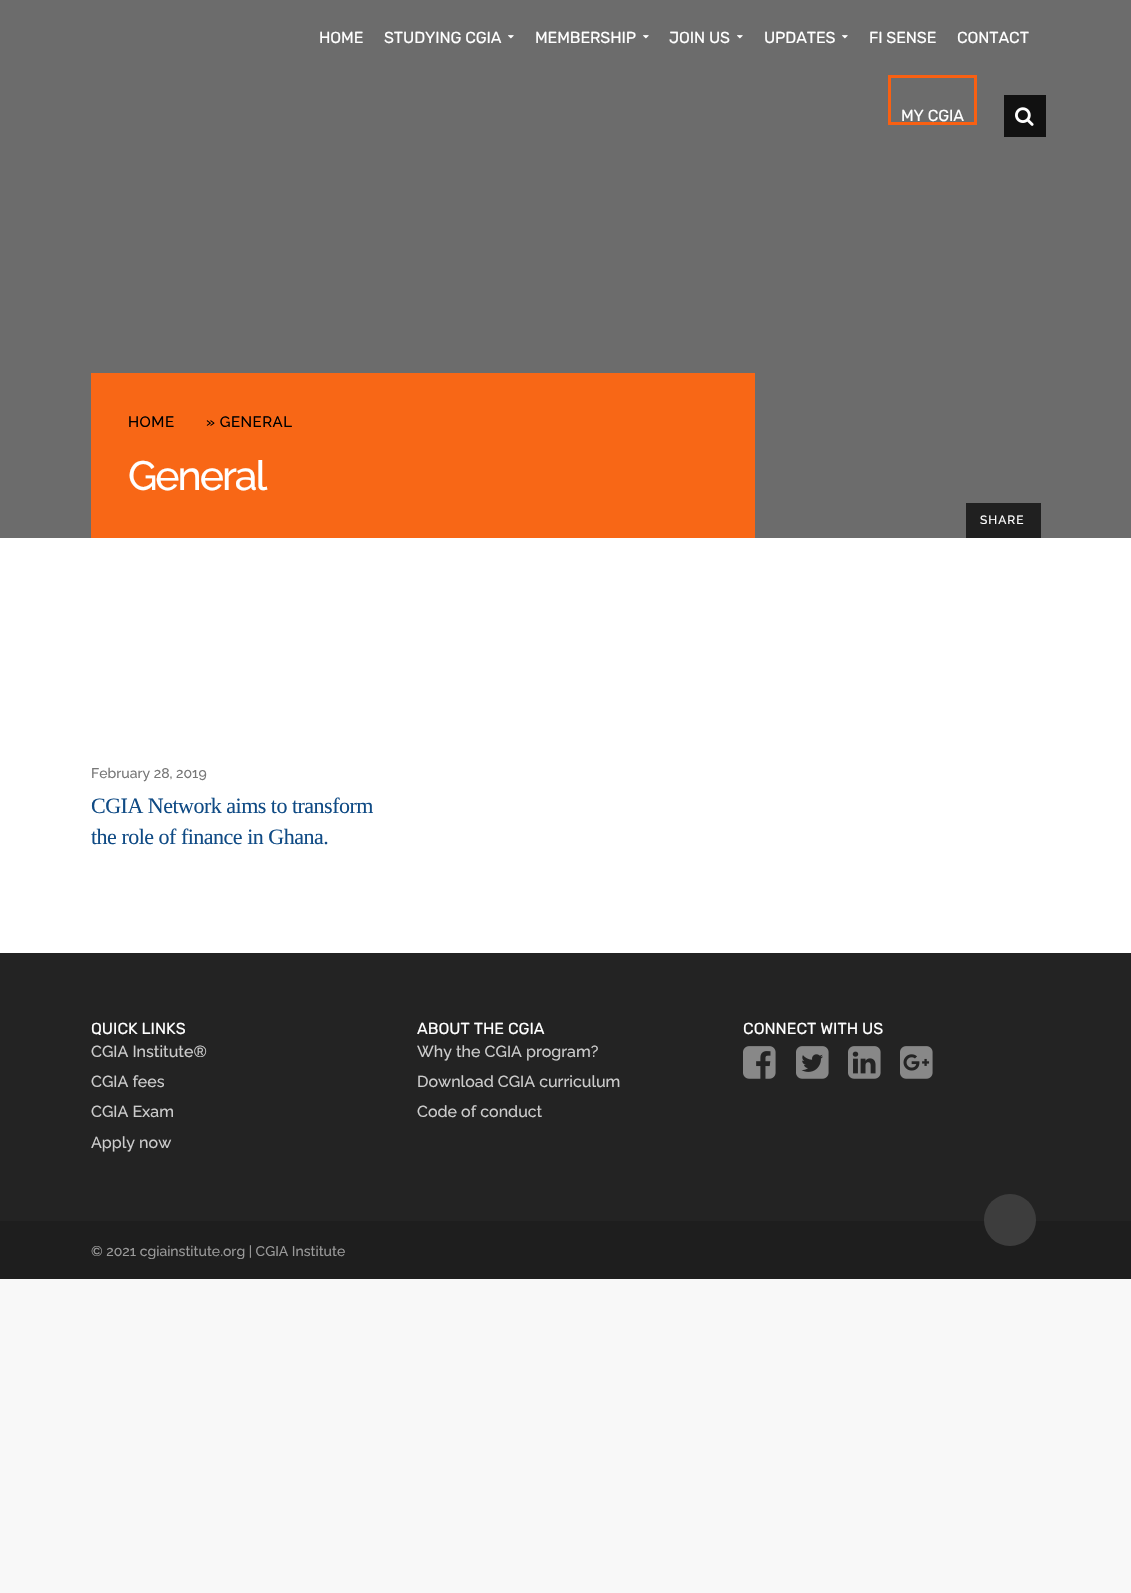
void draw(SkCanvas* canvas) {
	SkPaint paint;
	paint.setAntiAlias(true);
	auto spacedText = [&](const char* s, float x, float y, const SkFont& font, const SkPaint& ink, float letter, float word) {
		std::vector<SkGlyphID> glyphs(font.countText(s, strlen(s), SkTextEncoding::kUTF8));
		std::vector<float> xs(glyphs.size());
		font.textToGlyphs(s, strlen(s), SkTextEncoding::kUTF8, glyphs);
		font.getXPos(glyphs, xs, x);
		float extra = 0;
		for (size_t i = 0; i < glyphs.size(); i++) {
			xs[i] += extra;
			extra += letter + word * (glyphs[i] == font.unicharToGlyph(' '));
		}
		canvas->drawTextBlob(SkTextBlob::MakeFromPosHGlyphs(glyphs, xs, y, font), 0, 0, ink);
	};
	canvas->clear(0xfff8f8f8);
	paint.setColor(0xffffffff);
	canvas->drawRect(SkRect::MakeXYWH(0, 538, 1131, 415), paint);
	paint.setColor(0xff6c6c6c);
	canvas->drawRect(SkRect::MakeXYWH(0, 0, 1131, 538), paint);
	SkFont f1(fontMgr->matchFamilyStyle("Rubik", SkFontStyle::Normal()), 16);
	f1.setSubpixel(true);
	paint.setColor(0xffffffff);
	spacedText("HOME", 319, 43, f1, paint, -0.1, 0);
	spacedText("STUDYING CGIA", 384, 43, f1, paint, -0.1, 0);
	canvas->drawImageRect(SkImages::DeferredFromEncodedData(SkData::MakeFromFileName("img1.png")), SkRect::MakeXYWH(508, 35, 6, 4), SkSamplingOptions());
	spacedText("MEMBERSHIP", 535, 43, f1, paint, -0.1, 0);
	canvas->drawImageRect(SkImages::DeferredFromEncodedData(SkData::MakeFromFileName("img1.png")), SkRect::MakeXYWH(643, 35, 6, 4), SkSamplingOptions());
	spacedText("JOIN US", 669, 43, f1, paint, -0.1, 0);
	canvas->drawImageRect(SkImages::DeferredFromEncodedData(SkData::MakeFromFileName("img1.png")), SkRect::MakeXYWH(737, 35, 6, 4), SkSamplingOptions());
	spacedText("UPDATES", 764, 43, f1, paint, -0.1, 0);
	canvas->drawImageRect(SkImages::DeferredFromEncodedData(SkData::MakeFromFileName("img1.png")), SkRect::MakeXYWH(842, 35, 6, 4), SkSamplingOptions());
	spacedText("FI SENSE", 869, 43, f1, paint, -0.1, 0);
	spacedText("CONTACT", 957, 43, f1, paint, -0.1, 0);
	paint.setStroke(true);
	paint.setStrokeWidth(3);
	paint.setColor(0xfff96012);
	canvas->drawRect(SkRect::MakeXYWH(889.5, 76.5, 86, 47), paint);
	paint.setStroke(false);
	paint.setColor(0xffffffff);
	spacedText("MY CGIA", 901, 121, f1, paint, -0.1, 0);
	paint.setColor(0xff111111);
	canvas->drawRect(SkRect::MakeXYWH(1004, 95, 42, 42), paint);
	canvas->drawImageRect(SkImages::DeferredFromEncodedData(SkData::MakeFromFileName("img2.png")), SkRect::MakeXYWH(1015, 107, 19, 19), SkSamplingOptions());
	paint.setColor(0xfff86716);
	canvas->drawRect(SkRect::MakeXYWH(91, 373, 664, 165), paint);
	SkFont f2(fontMgr->matchFamilyStyle("Raleway", SkFontStyle(500, SkFontStyle::kNormal_Width, SkFontStyle::kUpright_Slant)), 15);
	f2.setSubpixel(true);
	paint.setColor(0xff000000);
	spacedText("HOME", 128, 427, f2, paint, 0.5, 0);
	spacedText("» GENERAL", 206, 427, f2, paint, 0.5, 0);
	SkFont f3(fontMgr->matchFamilyStyle("Raleway", SkFontStyle(500, SkFontStyle::kNormal_Width, SkFontStyle::kUpright_Slant)), 41);
	f3.setSubpixel(true);
	paint.setColor(0xffffffff);
	spacedText("General", 128, 490, f3, paint, -2, 0);
	paint.setColor(0xff202020);
	canvas->drawRect(SkRect::MakeXYWH(966, 503, 75, 35), paint);
	SkFont f4(fontMgr->matchFamilyStyle("Raleway", SkFontStyle(500, SkFontStyle::kNormal_Width, SkFontStyle::kUpright_Slant)), 12);
	f4.setSubpixel(true);
	paint.setColor(0xffffffff);
	spacedText("SHARE", 980, 524, f4, paint, 1, 0);
	SkFont f5(fontMgr->matchFamilyStyle("Raleway", SkFontStyle(500, SkFontStyle::kNormal_Width, SkFontStyle::kUpright_Slant)), 14);
	f5.setSubpixel(true);
	paint.setColor(0xff777777);
	canvas->drawString("February 28, 2019", 91, 778, f5, paint);
	SkFont f6(fontMgr->matchFamilyStyle("Liberation Serif", SkFontStyle::Normal()), 22);
	f6.setSubpixel(true);
	paint.setColor(0xff104b85);
	spacedText("CGIA Network aims to transform", 91, 813, f6, paint, -0.5, 0);
	spacedText("the role of finance in Ghana.", 91, 844, f6, paint, -0.5, 0);
	paint.setColor(0xff232323);
	canvas->drawRect(SkRect::MakeXYWH(0, 953, 1131, 268), paint);
	paint.setColor(0xffffffff);
	canvas->drawString("QUICK LINKS", 91, 1034, f1, paint);
	SkFont f7(fontMgr->matchFamilyStyle("Raleway", SkFontStyle(500, SkFontStyle::kNormal_Width, SkFontStyle::kUpright_Slant)), 16);
	f7.setSubpixel(true);
	paint.setColor(0xffcccccc);
	canvas->drawString("CGIA Institute®", 91, 1057, f7, paint);
	canvas->drawString("CGIA fees", 91, 1087, f7, paint);
	canvas->drawString("CGIA Exam", 91, 1117, f7, paint);
	canvas->drawString("Apply now", 91, 1148, f7, paint);
	paint.setColor(0xffffffff);
	canvas->drawString("ABOUT THE CGIA", 417, 1034, f1, paint);
	paint.setColor(0xffcccccc);
	canvas->drawString("Why the CGIA program?", 417, 1057, f7, paint);
	canvas->drawString("Download CGIA curriculum", 417, 1087, f7, paint);
	canvas->drawString("Code of conduct", 417, 1117, f7, paint);
	paint.setColor(0xffffffff);
	canvas->drawString("CONNECT WITH US", 743, 1034, f1, paint);
	canvas->drawImageRect(SkImages::DeferredFromEncodedData(SkData::MakeFromFileName("img3.png")), SkRect::MakeXYWH(743, 1046, 33, 33), SkSamplingOptions());
	canvas->drawImageRect(SkImages::DeferredFromEncodedData(SkData::MakeFromFileName("img4.png")), SkRect::MakeXYWH(796, 1046, 33, 33), SkSamplingOptions());
	canvas->drawImageRect(SkImages::DeferredFromEncodedData(SkData::MakeFromFileName("img5.png")), SkRect::MakeXYWH(848, 1046, 33, 33), SkSamplingOptions());
	canvas->drawImageRect(SkImages::DeferredFromEncodedData(SkData::MakeFromFileName("img6.png")), SkRect::MakeXYWH(900, 1046, 33, 33), SkSamplingOptions());
	paint.setColor(0xff1e1e1e);
	canvas->drawRect(SkRect::MakeXYWH(0, 1221, 1131, 58), paint);
	paint.setColor(0xff3d3d3d);
	canvas->drawCircle(1010, 1220, 26, paint);
	paint.setColor(0xff999999);
	canvas->drawString("© 2021 cgiainstitute.org | CGIA Institute", 91, 1256, f5, paint);
}
